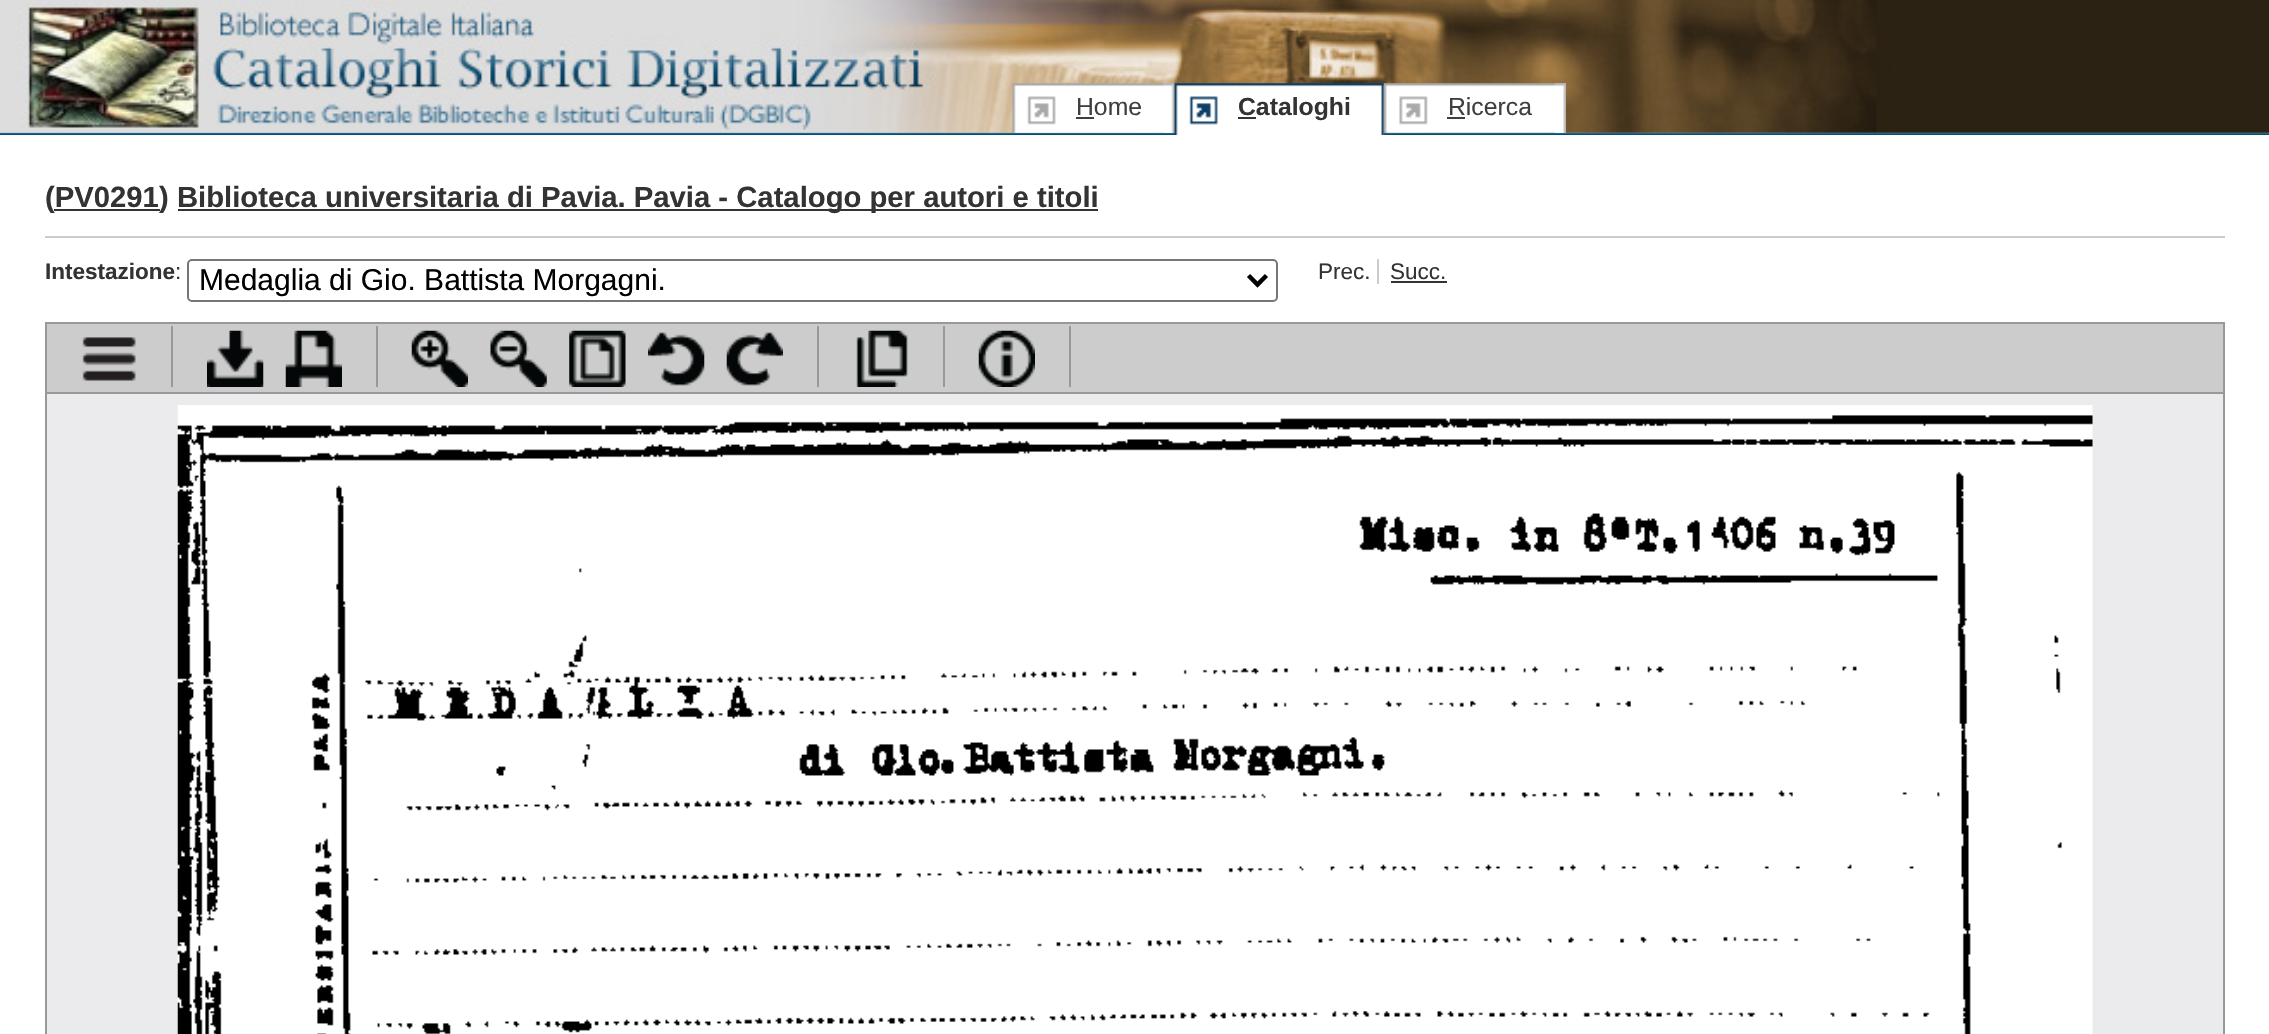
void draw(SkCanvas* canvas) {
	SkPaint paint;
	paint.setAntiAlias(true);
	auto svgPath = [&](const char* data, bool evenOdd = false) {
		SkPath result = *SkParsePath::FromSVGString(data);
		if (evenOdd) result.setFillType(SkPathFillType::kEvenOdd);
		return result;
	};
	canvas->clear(0xffffffff);
	canvas->drawImageRect(SkImages::DeferredFromEncodedData(SkData::MakeFromFileName("img1.png")), SkRect::MakeXYWH(0, 132, 2269, 3), SkSamplingOptions());
	canvas->drawImageRect(SkImages::DeferredFromEncodedData(SkData::MakeFromFileName("img2.png")), SkRect::MakeXYWH(0, 0, 2269, 133), SkSamplingOptions());
	canvas->drawImageRect(SkImages::DeferredFromEncodedData(SkData::MakeFromFileName("img3.png")), SkRect::MakeXYWH(1012, 83, 163, 50), SkSamplingOptions());
	canvas->drawImageRect(SkImages::DeferredFromEncodedData(SkData::MakeFromFileName("img4.png")), SkRect::MakeXYWH(1163, 83, 12, 50), SkSamplingOptions());
	SkFont f1(fontMgr->matchFamilyStyle("Liberation Sans", SkFontStyle::Normal()), 24.75);
	f1.setSubpixel(true);
	paint.setColor(0xff3f3f3f);
	canvas->drawString("Home", 1076, 115, f1, paint);
	canvas->drawRect(SkRect::MakeXYWH(1076, 117, 18, 2), paint);
	canvas->drawImageRect(SkImages::DeferredFromEncodedData(SkData::MakeFromFileName("img5.png")), SkRect::MakeXYWH(1174, 83, 210, 52), SkSamplingOptions());
	canvas->drawImageRect(SkImages::DeferredFromEncodedData(SkData::MakeFromFileName("img6.png")), SkRect::MakeXYWH(1370, 83, 14, 52), SkSamplingOptions());
	paint.setColor(0xff333333);
	canvas->drawRect(SkRect::MakeXYWH(1238, 117, 18, 2), paint);
	SkFont f2(fontMgr->matchFamilyStyle("Liberation Sans", SkFontStyle::Bold()), 24.75);
	f2.setSubpixel(true);
	canvas->drawString("Cataloghi", 1238, 115, f2, paint);
	canvas->drawImageRect(SkImages::DeferredFromEncodedData(SkData::MakeFromFileName("img7.png")), SkRect::MakeXYWH(1383, 83, 183, 50), SkSamplingOptions());
	canvas->drawImageRect(SkImages::DeferredFromEncodedData(SkData::MakeFromFileName("img8.png")), SkRect::MakeXYWH(1554, 83, 12, 50), SkSamplingOptions());
	paint.setColor(0xff3f3f3f);
	canvas->drawString("Ricerca", 1448, 115, f1, paint);
	canvas->drawRect(SkRect::MakeXYWH(1447, 117, 18, 2), paint);
	SkFont f3(fontMgr->matchFamilyStyle("Liberation Sans", SkFontStyle::Bold()), 29.25);
	f3.setSubpixel(true);
	paint.setColor(0xff333333);
	canvas->drawString("(PV0291", 45, 207, f3, paint);
	canvas->drawRect(SkRect::MakeXYWH(54, 209, 106, 2), paint);
	canvas->drawString(")", 159, 207, f3, paint);
	canvas->drawRect(SkRect::MakeXYWH(178, 209, 920, 2), paint);
	canvas->drawString("Biblioteca universitaria di Pavia. Pavia - Catalogo per autori e titoli", 177, 207, f3, paint);
	paint.setColor(0xffcccccc);
	canvas->drawRect(SkRect::MakeXYWH(45, 236, 2180, 2), paint);
	SkFont f4(fontMgr->matchFamilyStyle("Liberation Sans", SkFontStyle::Bold()), 22.5);
	f4.setSubpixel(true);
	paint.setColor(0xff333333);
	canvas->drawString("Intestazione", 45, 279, f4, paint);
	SkFont f5(fontMgr->matchFamilyStyle("Liberation Sans", SkFontStyle::Normal()), 22.5);
	f5.setSubpixel(true);
	canvas->drawString(":", 175, 279, f5, paint);
	paint.setStroke(true);
	paint.setStrokeWidth(2);
	paint.setColor(0xff767676);
	canvas->drawRoundRect(SkRect::MakeXYWH(188, 260, 1089, 41), 4, 4, paint);
	paint.setStrokeWidth(4.5);
	paint.setColor(0xff000000);
	canvas->drawPath(svgPath("M1248.5 275.5L1257.5 284.5L1266.5 275.5"), paint);
	SkFont f6(fontMgr->matchFamilyStyle("Liberation Sans", SkFontStyle::Normal()), 30);
	f6.setSubpixel(true);
	paint.setStroke(false);
	canvas->drawString("Medaglia di Gio. Battista Morgagni.", 199, 290, f6, paint);
	paint.setColor(0xff333333);
	canvas->drawString("Prec.", 1318, 279, f5, paint);
	paint.setColor(0xffcccccc);
	canvas->drawRect(SkRect::MakeXYWH(1377, 259, 2, 25), paint);
	paint.setColor(0xff333333);
	canvas->drawString("Succ.", 1390, 279, f5, paint);
	canvas->drawRect(SkRect::MakeXYWH(1391, 281, 56, 2), paint);
	paint.setColor(0xffcccccc);
	canvas->drawRect(SkRect::MakeXYWH(46, 323, 2178, 70), paint);
	paint.setStroke(true);
	paint.setStrokeWidth(2);
	paint.setColor(0xff999999);
	canvas->drawRect(SkRect::MakeXYWH(46, 323, 2178, 70), paint);
	paint.setStroke(false);
	canvas->drawRect(SkRect::MakeXYWH(171, 326, 2, 61), paint);
	canvas->drawImageRect(SkImages::DeferredFromEncodedData(SkData::MakeFromFileName("img9.png")), SkRect::MakeXYWH(82, 337, 54, 44), SkSamplingOptions());
	canvas->drawRect(SkRect::MakeXYWH(376, 326, 2, 61), paint);
	canvas->drawImageRect(SkImages::DeferredFromEncodedData(SkData::MakeFromFileName("img10.png")), SkRect::MakeXYWH(207, 330, 57, 57), SkSamplingOptions());
	canvas->drawImageRect(SkImages::DeferredFromEncodedData(SkData::MakeFromFileName("img11.png")), SkRect::MakeXYWH(285, 330, 57, 57), SkSamplingOptions());
	canvas->drawRect(SkRect::MakeXYWH(817, 326, 2, 61), paint);
	canvas->drawImageRect(SkImages::DeferredFromEncodedData(SkData::MakeFromFileName("img12.png")), SkRect::MakeXYWH(411, 330, 57, 57), SkSamplingOptions());
	canvas->drawImageRect(SkImages::DeferredFromEncodedData(SkData::MakeFromFileName("img13.png")), SkRect::MakeXYWH(490, 330, 57, 57), SkSamplingOptions());
	canvas->drawImageRect(SkImages::DeferredFromEncodedData(SkData::MakeFromFileName("img14.png")), SkRect::MakeXYWH(569, 330, 57, 57), SkSamplingOptions());
	canvas->drawImageRect(SkImages::DeferredFromEncodedData(SkData::MakeFromFileName("img15.png")), SkRect::MakeXYWH(648, 332, 57, 54), SkSamplingOptions());
	canvas->drawImageRect(SkImages::DeferredFromEncodedData(SkData::MakeFromFileName("img16.png")), SkRect::MakeXYWH(726, 332, 57, 54), SkSamplingOptions());
	canvas->drawRect(SkRect::MakeXYWH(943, 326, 2, 61), paint);
	canvas->drawImageRect(SkImages::DeferredFromEncodedData(SkData::MakeFromFileName("img17.png")), SkRect::MakeXYWH(856, 330, 52, 57), SkSamplingOptions());
	canvas->drawRect(SkRect::MakeXYWH(1069, 326, 2, 61), paint);
	canvas->drawImageRect(SkImages::DeferredFromEncodedData(SkData::MakeFromFileName("img18.png")), SkRect::MakeXYWH(978, 330, 57, 57), SkSamplingOptions());
	paint.setColor(0xffebeaec);
	canvas->drawRect(SkRect::MakeXYWH(47, 394, 2176, 640), paint);
	paint.setColor(0xff999999);
	canvas->drawRect(SkRect::MakeXYWH(2223, 394, 2, 640), paint);
	canvas->drawRect(SkRect::MakeXYWH(45, 394, 2, 640), paint);
	canvas->drawImageRect(SkImages::DeferredFromEncodedData(SkData::MakeFromFileName("img19.png")), SkRect::MakeXYWH(177, 405, 1916, 629), SkSamplingOptions());
}
